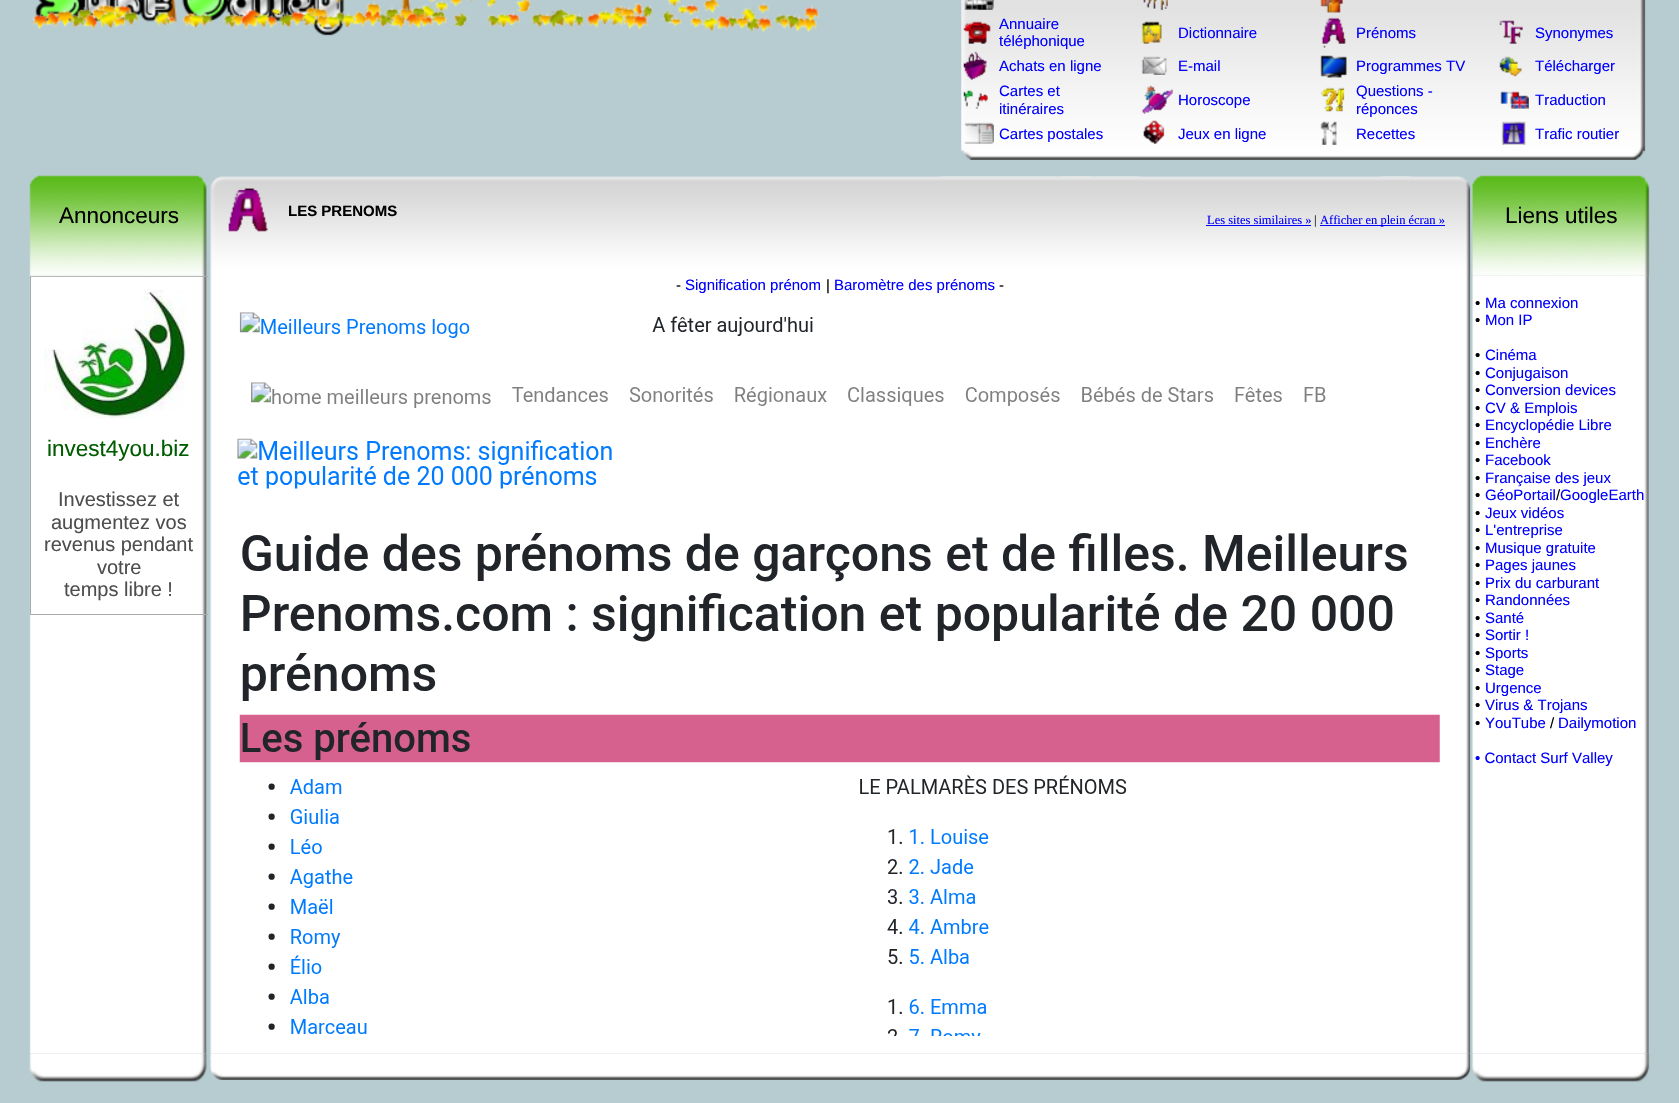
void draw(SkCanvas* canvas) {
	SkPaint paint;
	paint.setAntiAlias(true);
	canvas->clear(0xffb7ccd0);
	canvas->drawImageRect(SkImages::DeferredFromEncodedData(SkData::MakeFromFileName("img1.png")), SkRect::MakeXYWH(32, 0, 787, 36), SkSamplingOptions());
	canvas->drawImageRect(SkImages::DeferredFromEncodedData(SkData::MakeFromFileName("img2.png")), SkRect::MakeXYWH(961, 0, 685, 160), SkSamplingOptions());
	canvas->drawImageRect(SkImages::DeferredFromEncodedData(SkData::MakeFromFileName("img3.png")), SkRect::MakeXYWH(964, 0, 30, 10), SkSamplingOptions());
	canvas->drawImageRect(SkImages::DeferredFromEncodedData(SkData::MakeFromFileName("img4.png")), SkRect::MakeXYWH(1143, 0, 25, 11), SkSamplingOptions());
	canvas->drawImageRect(SkImages::DeferredFromEncodedData(SkData::MakeFromFileName("img5.png")), SkRect::MakeXYWH(1320, 0, 23, 13), SkSamplingOptions());
	canvas->drawImageRect(SkImages::DeferredFromEncodedData(SkData::MakeFromFileName("img6.png")), SkRect::MakeXYWH(963, 21, 28, 23), SkSamplingOptions());
	SkFont f1(fontMgr->matchFamilyStyle("Liberation Sans", SkFontStyle::Normal()), 15);
	f1.setSubpixel(true);
	paint.setColor(0xff0000ff);
	canvas->drawString("Annuaire", 999, 29, f1, paint);
	canvas->drawString("téléphonique", 999, 46, f1, paint);
	canvas->drawImageRect(SkImages::DeferredFromEncodedData(SkData::MakeFromFileName("img7.png")), SkRect::MakeXYWH(1141, 21, 21, 23), SkSamplingOptions());
	canvas->drawString("Dictionnaire", 1178, 38, f1, paint);
	canvas->drawImageRect(SkImages::DeferredFromEncodedData(SkData::MakeFromFileName("img8.png")), SkRect::MakeXYWH(1321, 17, 25, 31), SkSamplingOptions());
	canvas->drawString("Prénoms", 1356, 38, f1, paint);
	canvas->drawImageRect(SkImages::DeferredFromEncodedData(SkData::MakeFromFileName("img9.png")), SkRect::MakeXYWH(1499, 20, 24, 24), SkSamplingOptions());
	canvas->drawString("Synonymes", 1535, 38, f1, paint);
	canvas->drawImageRect(SkImages::DeferredFromEncodedData(SkData::MakeFromFileName("img10.png")), SkRect::MakeXYWH(963, 51, 24, 29), SkSamplingOptions());
	canvas->drawString("Achats en ligne", 999, 71, f1, paint);
	canvas->drawImageRect(SkImages::DeferredFromEncodedData(SkData::MakeFromFileName("img11.png")), SkRect::MakeXYWH(1141, 56, 26, 19), SkSamplingOptions());
	canvas->drawString("E-mail", 1178, 71, f1, paint);
	canvas->drawImageRect(SkImages::DeferredFromEncodedData(SkData::MakeFromFileName("img12.png")), SkRect::MakeXYWH(1320, 55, 27, 23), SkSamplingOptions());
	canvas->drawString("Programmes TV", 1356, 71, f1, paint);
	canvas->drawImageRect(SkImages::DeferredFromEncodedData(SkData::MakeFromFileName("img13.png")), SkRect::MakeXYWH(1499, 56, 23, 21), SkSamplingOptions());
	canvas->drawString("Télécharger", 1535, 71, f1, paint);
	canvas->drawImageRect(SkImages::DeferredFromEncodedData(SkData::MakeFromFileName("img14.png")), SkRect::MakeXYWH(963, 90, 25, 19), SkSamplingOptions());
	canvas->drawString("Cartes et", 999, 96, f1, paint);
	canvas->drawString("itinéraires", 999, 114, f1, paint);
	canvas->drawImageRect(SkImages::DeferredFromEncodedData(SkData::MakeFromFileName("img15.png")), SkRect::MakeXYWH(1141, 85, 32, 29), SkSamplingOptions());
	canvas->drawString("Horoscope", 1178, 105, f1, paint);
	canvas->drawImageRect(SkImages::DeferredFromEncodedData(SkData::MakeFromFileName("img16.png")), SkRect::MakeXYWH(1320, 87, 25, 25), SkSamplingOptions());
	canvas->drawString("Questions -", 1356, 96, f1, paint);
	canvas->drawString("réponces", 1356, 114, f1, paint);
	canvas->drawImageRect(SkImages::DeferredFromEncodedData(SkData::MakeFromFileName("img17.png")), SkRect::MakeXYWH(1500, 91, 29, 18), SkSamplingOptions());
	canvas->drawString("Traduction", 1535, 105, f1, paint);
	canvas->drawImageRect(SkImages::DeferredFromEncodedData(SkData::MakeFromFileName("img18.png")), SkRect::MakeXYWH(964, 122, 30, 22), SkSamplingOptions());
	canvas->drawString("Cartes postales", 999, 139, f1, paint);
	canvas->drawImageRect(SkImages::DeferredFromEncodedData(SkData::MakeFromFileName("img19.png")), SkRect::MakeXYWH(1143, 120, 22, 24), SkSamplingOptions());
	canvas->drawString("Jeux en ligne", 1178, 139, f1, paint);
	canvas->drawImageRect(SkImages::DeferredFromEncodedData(SkData::MakeFromFileName("img20.png")), SkRect::MakeXYWH(1320, 121, 17, 24), SkSamplingOptions());
	canvas->drawString("Recettes", 1356, 139, f1, paint);
	canvas->drawImageRect(SkImages::DeferredFromEncodedData(SkData::MakeFromFileName("img21.png")), SkRect::MakeXYWH(1501, 121, 25, 24), SkSamplingOptions());
	canvas->drawString("Trafic routier", 1535, 139, f1, paint);
	canvas->drawImageRect(SkImages::DeferredFromEncodedData(SkData::MakeFromFileName("img28.png")), SkRect::MakeXYWH(29, 276, 178, 778), SkSamplingOptions());
	paint.setColor(0xffaaaaaa);
	canvas->drawRect(SkRect::MakeXYWH(30, 276, 178, 1), paint);
	canvas->drawRect(SkRect::MakeXYWH(206, 276, 1, 339), paint);
	canvas->drawRect(SkRect::MakeXYWH(30, 614, 178, 1), paint);
	canvas->drawRect(SkRect::MakeXYWH(30, 276, 1, 339), paint);
	canvas->drawImageRect(SkImages::DeferredFromEncodedData(SkData::MakeFromFileName("img22.png")), SkRect::MakeXYWH(29, 175, 178, 102), SkSamplingOptions());
	SkFont f2(fontMgr->matchFamilyStyle("Liberation Sans", SkFontStyle::Normal()), 22.5);
	f2.setSubpixel(true);
	paint.setColor(0xff000000);
	canvas->drawString("Annonceurs", 59, 223, f2, paint);
	canvas->drawImageRect(SkImages::DeferredFromEncodedData(SkData::MakeFromFileName("img23.png")), SkRect::MakeXYWH(210, 176, 1261, 100), SkSamplingOptions());
	canvas->drawImageRect(SkImages::DeferredFromEncodedData(SkData::MakeFromFileName("img24.png")), SkRect::MakeXYWH(228, 188, 40, 44), SkSamplingOptions());
	SkFont f3(fontMgr->matchFamilyStyle("Liberation Sans", SkFontStyle::Bold()), 15);
	f3.setSubpixel(true);
	canvas->drawString("LES PRENOMS", 288, 216, f3, paint);
	SkFont f4(fontMgr->matchFamilyStyle("Liberation Serif", SkFontStyle::Normal()), 12.5);
	f4.setSubpixel(true);
	paint.setColor(0xff0000ff);
	canvas->drawString("Les sites similaires »", 1207, 224, f4, paint);
	canvas->drawRect(SkRect::MakeXYWH(1206, 225, 105, 1), paint);
	paint.setColor(0xff000000);
	canvas->drawString("|", 1314, 224, f4, paint);
	paint.setColor(0xff0000ff);
	canvas->drawRect(SkRect::MakeXYWH(1320, 225, 125, 1), paint);
	canvas->drawString("Afficher en plein écran »", 1320, 224, f4, paint);
	canvas->drawImageRect(SkImages::DeferredFromEncodedData(SkData::MakeFromFileName("img30.png")), SkRect::MakeXYWH(1472, 276, 177, 778), SkSamplingOptions());
	canvas->drawImageRect(SkImages::DeferredFromEncodedData(SkData::MakeFromFileName("img25.png")), SkRect::MakeXYWH(1471, 175, 179, 102), SkSamplingOptions());
	paint.setColor(0xff000000);
	canvas->drawString("Liens utiles", 1505, 223, f2, paint);
	canvas->drawImageRect(SkImages::DeferredFromEncodedData(SkData::MakeFromFileName("img26.png")), SkRect::MakeXYWH(210, 276, 1261, 778), SkSamplingOptions());
	canvas->drawString("-", 676, 290, f1, paint);
	paint.setColor(0xff0000ff);
	canvas->drawString("Signification prénom", 685, 290, f1, paint);
	paint.setColor(0xff000000);
	canvas->drawString("|", 826, 290, f1, paint);
	paint.setColor(0xff0000ff);
	canvas->drawString("Baromètre des prénoms", 834, 290, f1, paint);
	paint.setColor(0xff000000);
	canvas->drawString("-", 999, 290, f1, paint);
	canvas->drawImageRect(SkImages::DeferredFromEncodedData(SkData::MakeFromFileName("img27.png")), SkRect::MakeXYWH(237, 312, 1203, 724), SkSamplingOptions());
	canvas->drawImageRect(SkImages::DeferredFromEncodedData(SkData::MakeFromFileName("img29.png")), SkRect::MakeXYWH(44, 289, 147, 130), SkSamplingOptions());
	paint.setColor(0xff005c00);
	canvas->drawString("invest4you.biz", 47, 456, f2, paint);
	SkFont f5(fontMgr->matchFamilyStyle("Liberation Sans", SkFontStyle::Normal()), 20);
	f5.setSubpixel(true);
	paint.setColor(0xff4e4e4e);
	canvas->drawString("Investissez et", 58, 506, f5, paint);
	canvas->drawString("augmentez vos", 51, 529, f5, paint);
	canvas->drawString("revenus pendant", 44, 551, f5, paint);
	canvas->drawString("votre", 97, 574, f5, paint);
	canvas->drawString("temps libre !", 64, 596, f5, paint);
	paint.setColor(0xff000000);
	canvas->drawString("•", 1475, 308, f1, paint);
	paint.setColor(0xff0000ff);
	canvas->drawString("Ma connexion", 1485, 308, f1, paint);
	paint.setColor(0xff000000);
	canvas->drawString("•", 1475, 325, f1, paint);
	paint.setColor(0xff0000ff);
	canvas->drawString("Mon IP", 1485, 325, f1, paint);
	paint.setColor(0xff000000);
	canvas->drawString("•", 1475, 360, f1, paint);
	paint.setColor(0xff0000ff);
	canvas->drawString("Cinéma", 1485, 360, f1, paint);
	paint.setColor(0xff000000);
	canvas->drawString("•", 1475, 378, f1, paint);
	paint.setColor(0xff0000ff);
	canvas->drawString("Conjugaison", 1485, 378, f1, paint);
	paint.setColor(0xff000000);
	canvas->drawString("•", 1475, 395, f1, paint);
	paint.setColor(0xff0000ff);
	canvas->drawString("Conversion devices", 1485, 395, f1, paint);
	paint.setColor(0xff000000);
	canvas->drawString("•", 1475, 413, f1, paint);
	paint.setColor(0xff0000ff);
	canvas->drawString("CV & Emplois", 1485, 413, f1, paint);
	paint.setColor(0xff000000);
	canvas->drawString("•", 1475, 430, f1, paint);
	paint.setColor(0xff0000ff);
	canvas->drawString("Encyclopédie Libre", 1485, 430, f1, paint);
	paint.setColor(0xff000000);
	canvas->drawString("•", 1475, 448, f1, paint);
	paint.setColor(0xff0000ff);
	canvas->drawString("Enchère", 1485, 448, f1, paint);
	paint.setColor(0xff000000);
	canvas->drawString("•", 1475, 465, f1, paint);
	paint.setColor(0xff0000ff);
	canvas->drawString("Facebook", 1485, 465, f1, paint);
	paint.setColor(0xff000000);
	canvas->drawString("•", 1475, 483, f1, paint);
	paint.setColor(0xff0000ff);
	canvas->drawString("Française des jeux", 1485, 483, f1, paint);
	canvas->drawString("GéoPortail GoogleEarth", 1485, 500, f1, paint);
	paint.setColor(0xff000000);
	canvas->drawString("•", 1475, 500, f1, paint);
	canvas->drawString("/", 1556, 500, f1, paint);
	canvas->drawString("•", 1475, 518, f1, paint);
	paint.setColor(0xff0000ff);
	canvas->drawString("Jeux vidéos", 1485, 518, f1, paint);
	paint.setColor(0xff000000);
	canvas->drawString("•", 1475, 535, f1, paint);
	paint.setColor(0xff0000ff);
	canvas->drawString("L'entreprise", 1485, 535, f1, paint);
	paint.setColor(0xff000000);
	canvas->drawString("•", 1475, 553, f1, paint);
	paint.setColor(0xff0000ff);
	canvas->drawString("Musique gratuite", 1485, 553, f1, paint);
	paint.setColor(0xff000000);
	canvas->drawString("•", 1475, 570, f1, paint);
	paint.setColor(0xff0000ff);
	canvas->drawString("Pages jaunes", 1485, 570, f1, paint);
	paint.setColor(0xff000000);
	canvas->drawString("•", 1475, 588, f1, paint);
	paint.setColor(0xff0000ff);
	canvas->drawString("Prix du carburant", 1485, 588, f1, paint);
	paint.setColor(0xff000000);
	canvas->drawString("•", 1475, 605, f1, paint);
	paint.setColor(0xff0000ff);
	canvas->drawString("Randonnées", 1485, 605, f1, paint);
	paint.setColor(0xff000000);
	canvas->drawString("•", 1475, 623, f1, paint);
	paint.setColor(0xff0000ff);
	canvas->drawString("Santé", 1485, 623, f1, paint);
	paint.setColor(0xff000000);
	canvas->drawString("•", 1475, 640, f1, paint);
	paint.setColor(0xff0000ff);
	canvas->drawString("Sortir !", 1485, 640, f1, paint);
	paint.setColor(0xff000000);
	canvas->drawString("•", 1475, 658, f1, paint);
	paint.setColor(0xff0000ff);
	canvas->drawString("Sports", 1485, 658, f1, paint);
	paint.setColor(0xff000000);
	canvas->drawString("•", 1475, 675, f1, paint);
	paint.setColor(0xff0000ff);
	canvas->drawString("Stage", 1485, 675, f1, paint);
	paint.setColor(0xff000000);
	canvas->drawString("•", 1475, 693, f1, paint);
	paint.setColor(0xff0000ff);
	canvas->drawString("Urgence", 1485, 693, f1, paint);
	paint.setColor(0xff000000);
	canvas->drawString("•", 1475, 710, f1, paint);
	paint.setColor(0xff0000ff);
	canvas->drawString("Virus & Trojans", 1485, 710, f1, paint);
	paint.setColor(0xff000000);
	canvas->drawString("•", 1475, 728, f1, paint);
	paint.setColor(0xff0000ff);
	canvas->drawString("YouTube", 1485, 728, f1, paint);
	paint.setColor(0xff000000);
	canvas->drawString("/", 1550, 728, f1, paint);
	paint.setColor(0xff0000ff);
	canvas->drawString("Dailymotion", 1558, 728, f1, paint);
	canvas->drawString("• Contact Surf Valley", 1475, 763, f1, paint);
	canvas->drawImageRect(SkImages::DeferredFromEncodedData(SkData::MakeFromFileName("img31.png")), SkRect::MakeXYWH(29, 1053, 178, 29), SkSamplingOptions());
	canvas->drawImageRect(SkImages::DeferredFromEncodedData(SkData::MakeFromFileName("img32.png")), SkRect::MakeXYWH(210, 1053, 1261, 27), SkSamplingOptions());
	canvas->drawImageRect(SkImages::DeferredFromEncodedData(SkData::MakeFromFileName("img33.png")), SkRect::MakeXYWH(1472, 1053, 178, 29), SkSamplingOptions());
}
